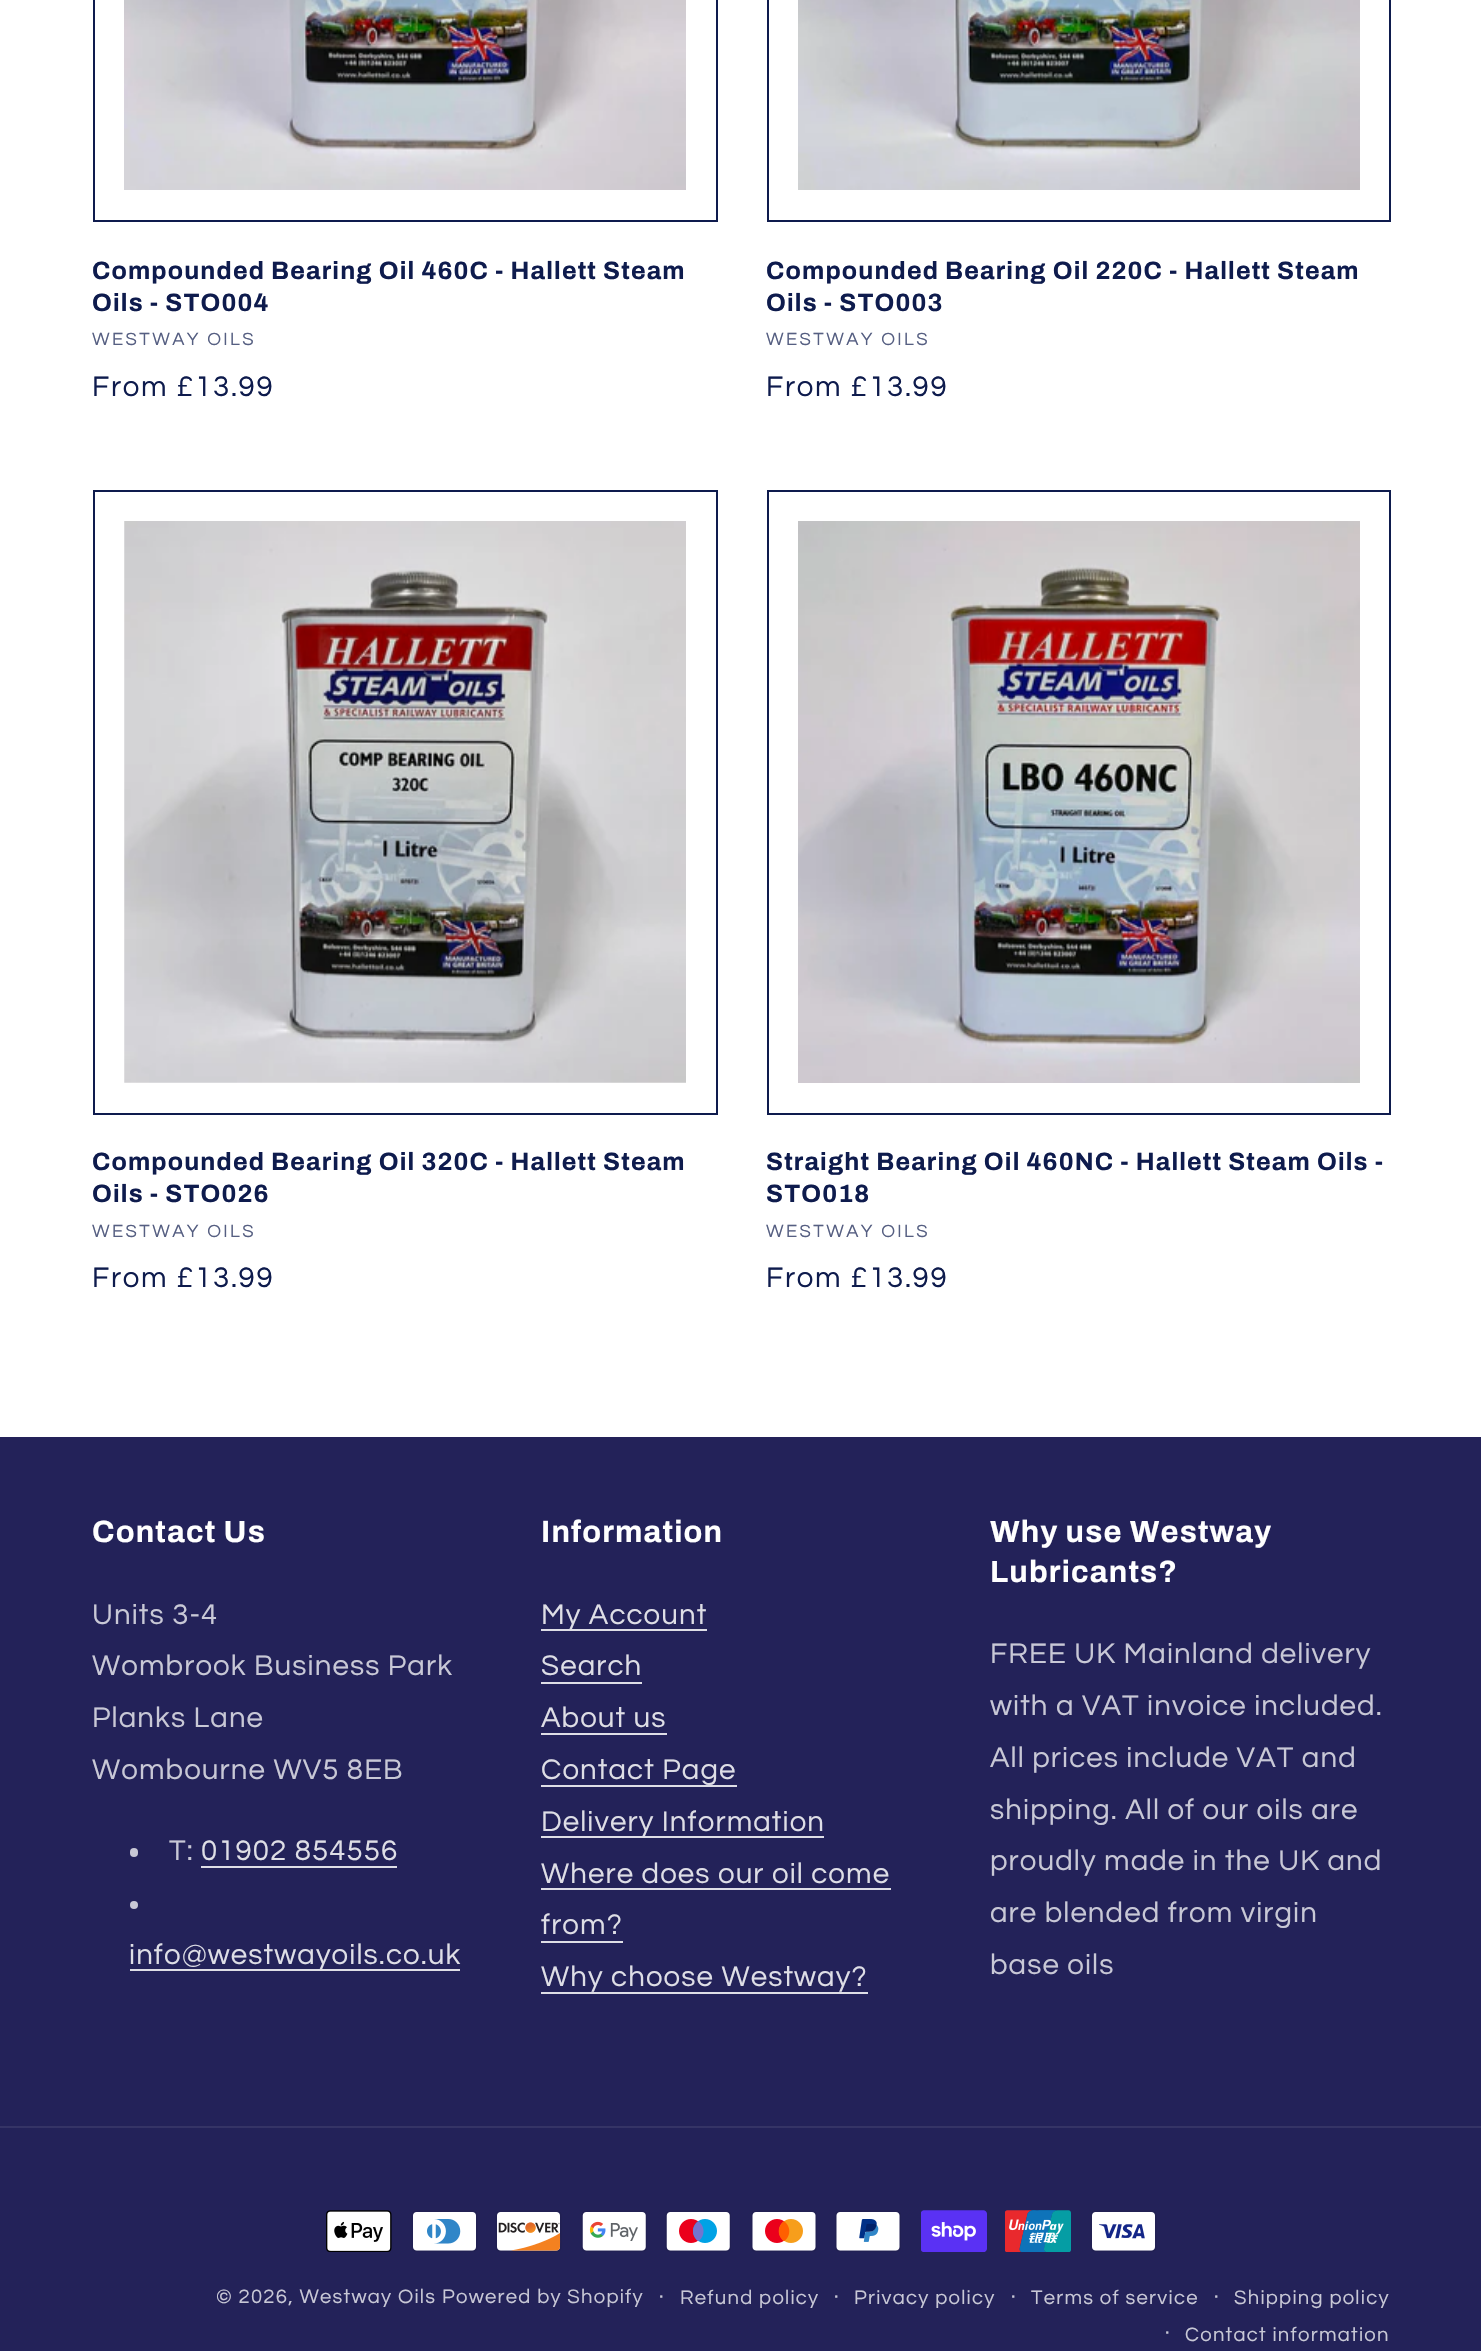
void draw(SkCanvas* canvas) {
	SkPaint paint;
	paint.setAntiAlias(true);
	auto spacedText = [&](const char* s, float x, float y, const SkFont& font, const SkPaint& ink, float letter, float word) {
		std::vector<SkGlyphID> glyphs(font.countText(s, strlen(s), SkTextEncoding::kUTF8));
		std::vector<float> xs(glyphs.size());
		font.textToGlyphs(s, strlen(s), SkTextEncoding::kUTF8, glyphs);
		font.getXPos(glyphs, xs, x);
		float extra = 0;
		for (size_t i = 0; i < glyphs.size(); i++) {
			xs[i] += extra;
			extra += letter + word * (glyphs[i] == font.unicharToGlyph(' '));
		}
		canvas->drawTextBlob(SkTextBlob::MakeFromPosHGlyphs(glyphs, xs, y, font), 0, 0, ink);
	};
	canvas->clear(0xffffffff);
	paint.setStroke(true);
	paint.setStrokeWidth(2);
	paint.setColor(0xff0e1b4d);
	canvas->drawRect(SkRect::MakeXYWH(94, -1, 623, 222), paint);
	canvas->drawImageRect(SkImages::DeferredFromEncodedData(SkData::MakeFromFileName("img1.png")), SkRect::MakeXYWH(124, 0, 562, 190), SkSamplingOptions());
	SkFont f1(fontMgr->matchFamilyStyle("Archivo", SkFontStyle::Bold()), 25);
	f1.setSubpixel(true);
	paint.setStroke(false);
	spacedText("Compounded Bearing Oil 460C - Hallett Steam", 92, 279, f1, paint, 1.15, 0);
	spacedText("Oils - STO004", 92, 311, f1, paint, 1.15, 0);
	SkFont f2(fontMgr->matchFamilyStyle("Questrial", SkFontStyle::Normal()), 18.4);
	f2.setSubpixel(true);
	paint.setColor(0xff565f82);
	spacedText("WESTWAY OILS", 92, 345, f2, paint, 2.4, 0);
	SkFont f3(fontMgr->matchFamilyStyle("Questrial", SkFontStyle::Normal()), 29.4);
	f3.setSubpixel(true);
	paint.setColor(0xff0e1b4d);
	spacedText("From £13.99", 92, 396, f3, paint, 1.75, 0);
	paint.setStroke(true);
	canvas->drawRect(SkRect::MakeXYWH(768, -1, 622, 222), paint);
	canvas->drawImageRect(SkImages::DeferredFromEncodedData(SkData::MakeFromFileName("img2.png")), SkRect::MakeXYWH(798, 0, 562, 190), SkSamplingOptions());
	paint.setStroke(false);
	spacedText("Compounded Bearing Oil 220C - Hallett Steam", 766, 279, f1, paint, 1.15, 0);
	spacedText("Oils - STO003", 766, 311, f1, paint, 1.15, 0);
	paint.setColor(0xff565f82);
	spacedText("WESTWAY OILS", 766, 345, f2, paint, 2.4, 0);
	paint.setColor(0xff0e1b4d);
	spacedText("From £13.99", 766, 396, f3, paint, 1.75, 0);
	paint.setStroke(true);
	canvas->drawRect(SkRect::MakeXYWH(94, 491, 623, 623), paint);
	canvas->drawImageRect(SkImages::DeferredFromEncodedData(SkData::MakeFromFileName("img3.png")), SkRect::MakeXYWH(124, 521, 562, 562), SkSamplingOptions());
	paint.setStroke(false);
	spacedText("Compounded Bearing Oil 320C - Hallett Steam", 92, 1170, f1, paint, 1.15, 0);
	spacedText("Oils - STO026", 92, 1202, f1, paint, 1.15, 0);
	paint.setColor(0xff565f82);
	spacedText("WESTWAY OILS", 92, 1237, f2, paint, 2.4, 0);
	paint.setColor(0xff0e1b4d);
	spacedText("From £13.99", 92, 1287, f3, paint, 1.75, 0);
	paint.setStroke(true);
	canvas->drawRect(SkRect::MakeXYWH(768, 491, 622, 623), paint);
	canvas->drawImageRect(SkImages::DeferredFromEncodedData(SkData::MakeFromFileName("img4.png")), SkRect::MakeXYWH(798, 521, 562, 562), SkSamplingOptions());
	paint.setStroke(false);
	spacedText("Straight Bearing Oil 460NC - Hallett Steam Oils -", 766, 1170, f1, paint, 1.15, 0);
	spacedText("STO018", 766, 1202, f1, paint, 1.15, 0);
	paint.setColor(0xff565f82);
	spacedText("WESTWAY OILS", 766, 1237, f2, paint, 2.4, 0);
	paint.setColor(0xff0e1b4d);
	spacedText("From £13.99", 766, 1287, f3, paint, 1.75, 0);
	paint.setColor(0xff232259);
	canvas->drawRect(SkRect::MakeXYWH(0, 1437, 1481, 914), paint);
	SkFont f4(fontMgr->matchFamilyStyle("Archivo", SkFontStyle::Bold()), 30.75);
	f4.setSubpixel(true);
	paint.setColor(0xffffffff);
	spacedText("Contact Us", 92, 1542, f4, paint, 1.15, 0);
	paint.setColor(0xffc8c8d6);
	spacedText("Units 3-4", 92, 1624, f3, paint, 1.1, 0);
	spacedText("Wombrook Business Park", 92, 1675, f3, paint, 1.1, 0);
	spacedText("Planks Lane", 92, 1727, f3, paint, 1.1, 0);
	spacedText("Wombourne WV5 8EB", 92, 1779, f3, paint, 1.1, 0);
	canvas->drawRoundRect(SkRect::MakeXYWH(130, 1848, 8, 9), 4, 4, paint);
	spacedText("T:", 169, 1860, f3, paint, 1.1, 0);
	paint.setColor(0xffdedee6);
	spacedText("01902 854556", 201, 1860, f3, paint, 1.1, 0);
	canvas->drawRect(SkRect::MakeXYWH(201, 1866, 196, 2), paint);
	paint.setColor(0xffc8c8d6);
	canvas->drawCircle(134, 1905, 4, paint);
	paint.setColor(0xffdedee6);
	canvas->drawRect(SkRect::MakeXYWH(130, 1969, 330, 2), paint);
	spacedText("info@westwayoils.co.uk", 129, 1964, f3, paint, 1.1, 0);
	paint.setColor(0xffffffff);
	spacedText("Information", 541, 1542, f4, paint, 1.15, 0);
	paint.setColor(0xffdedee6);
	canvas->drawRect(SkRect::MakeXYWH(541, 1629, 166, 2), paint);
	spacedText("My Account", 541, 1624, f3, paint, 1.1, 0);
	spacedText("Search", 541, 1675, f3, paint, 1.1, 0);
	canvas->drawRect(SkRect::MakeXYWH(541, 1682, 101, 2), paint);
	spacedText("About us", 541, 1727, f3, paint, 1.1, 0);
	canvas->drawRect(SkRect::MakeXYWH(541, 1733, 126, 2), paint);
	canvas->drawRect(SkRect::MakeXYWH(541, 1785, 196, 2), paint);
	spacedText("Contact Page", 541, 1779, f3, paint, 1.1, 0);
	canvas->drawRect(SkRect::MakeXYWH(541, 1836, 283, 2), paint);
	spacedText("Delivery Information", 541, 1831, f3, paint, 1.1, 0);
	spacedText("Where does our oil come", 541, 1883, f3, paint, 1.1, 0);
	canvas->drawRect(SkRect::MakeXYWH(541, 1888, 350, 2), paint);
	spacedText("from?", 541, 1934, f3, paint, 1.1, 0);
	canvas->drawRect(SkRect::MakeXYWH(541, 1941, 82, 2), paint);
	spacedText("Why choose Westway?", 541, 1986, f3, paint, 1.1, 0);
	canvas->drawRect(SkRect::MakeXYWH(541, 1992, 327, 2), paint);
	paint.setColor(0xffffffff);
	spacedText("Why use Westway", 990, 1542, f4, paint, 1.15, 0);
	spacedText("Lubricants?", 990, 1582, f4, paint, 1.15, 0);
	paint.setColor(0xffc8c8d6);
	spacedText("FREE UK Mainland delivery", 990, 1663, f3, paint, 1.1, 0);
	spacedText("with a VAT invoice included.", 990, 1715, f3, paint, 1.1, 0);
	spacedText("All prices include VAT and", 990, 1767, f3, paint, 1.1, 0);
	spacedText("shipping. All of our oils are", 990, 1819, f3, paint, 1.1, 0);
	spacedText("proudly made in the UK and", 990, 1870, f3, paint, 1.1, 0);
	spacedText("are blended from virgin", 990, 1922, f3, paint, 1.1, 0);
	spacedText("base oils", 990, 1974, f3, paint, 1.1, 0);
	paint.setColor(0xff353466);
	canvas->drawRect(SkRect::MakeXYWH(0, 2126, 1481, 2), paint);
	canvas->drawImageRect(SkImages::DeferredFromEncodedData(SkData::MakeFromFileName("img5.png")), SkRect::MakeXYWH(326, 2210, 66, 42), SkSamplingOptions());
	canvas->drawImageRect(SkImages::DeferredFromEncodedData(SkData::MakeFromFileName("img6.png")), SkRect::MakeXYWH(411, 2210, 67, 42), SkSamplingOptions());
	canvas->drawImageRect(SkImages::DeferredFromEncodedData(SkData::MakeFromFileName("img7.png")), SkRect::MakeXYWH(495, 2210, 67, 42), SkSamplingOptions());
	canvas->drawImageRect(SkImages::DeferredFromEncodedData(SkData::MakeFromFileName("img8.png")), SkRect::MakeXYWH(581, 2210, 66, 42), SkSamplingOptions());
	canvas->drawImageRect(SkImages::DeferredFromEncodedData(SkData::MakeFromFileName("img9.png")), SkRect::MakeXYWH(665, 2210, 66, 42), SkSamplingOptions());
	canvas->drawImageRect(SkImages::DeferredFromEncodedData(SkData::MakeFromFileName("img10.png")), SkRect::MakeXYWH(751, 2210, 66, 42), SkSamplingOptions());
	canvas->drawImageRect(SkImages::DeferredFromEncodedData(SkData::MakeFromFileName("img11.png")), SkRect::MakeXYWH(835, 2210, 66, 42), SkSamplingOptions());
	canvas->drawImageRect(SkImages::DeferredFromEncodedData(SkData::MakeFromFileName("img12.png")), SkRect::MakeXYWH(921, 2210, 66, 42), SkSamplingOptions());
	canvas->drawImageRect(SkImages::DeferredFromEncodedData(SkData::MakeFromFileName("img13.png")), SkRect::MakeXYWH(1005, 2210, 66, 42), SkSamplingOptions());
	canvas->drawImageRect(SkImages::DeferredFromEncodedData(SkData::MakeFromFileName("img14.png")), SkRect::MakeXYWH(1090, 2210, 67, 42), SkSamplingOptions());
	SkFont f5(fontMgr->matchFamilyStyle("Questrial", SkFontStyle::Normal()), 20.25);
	f5.setSubpixel(true);
	paint.setColor(0xffc8c8d6);
	spacedText("© 2026, Westway Oils", 216, 2303, f5, paint, 1.25, 0);
	spacedText("Powered by Shopify", 442, 2303, f5, paint, 1.25, 0);
	SkFont f6(fontMgr->matchFamilyStyle("Questrial", SkFontStyle::Normal()), 22);
	f6.setSubpixel(true);
	spacedText("·", 659, 2303, f6, paint, 1.25, 0);
	spacedText("Refund policy", 680, 2304, f5, paint, 1.25, 0);
	spacedText("·", 834, 2303, f6, paint, 1.25, 0);
	spacedText("Privacy policy", 854, 2304, f5, paint, 1.25, 0);
	spacedText("·", 1011, 2303, f6, paint, 1.25, 0);
	spacedText("Terms of service", 1031, 2304, f5, paint, 1.25, 0);
	spacedText("·", 1214, 2303, f6, paint, 1.25, 0);
	spacedText("Shipping policy", 1234, 2304, f5, paint, 1.25, 0);
	spacedText("·", 1165, 2339, f6, paint, 1.25, 0);
	spacedText("Contact information", 1185, 2341, f5, paint, 1.25, 0);
}
